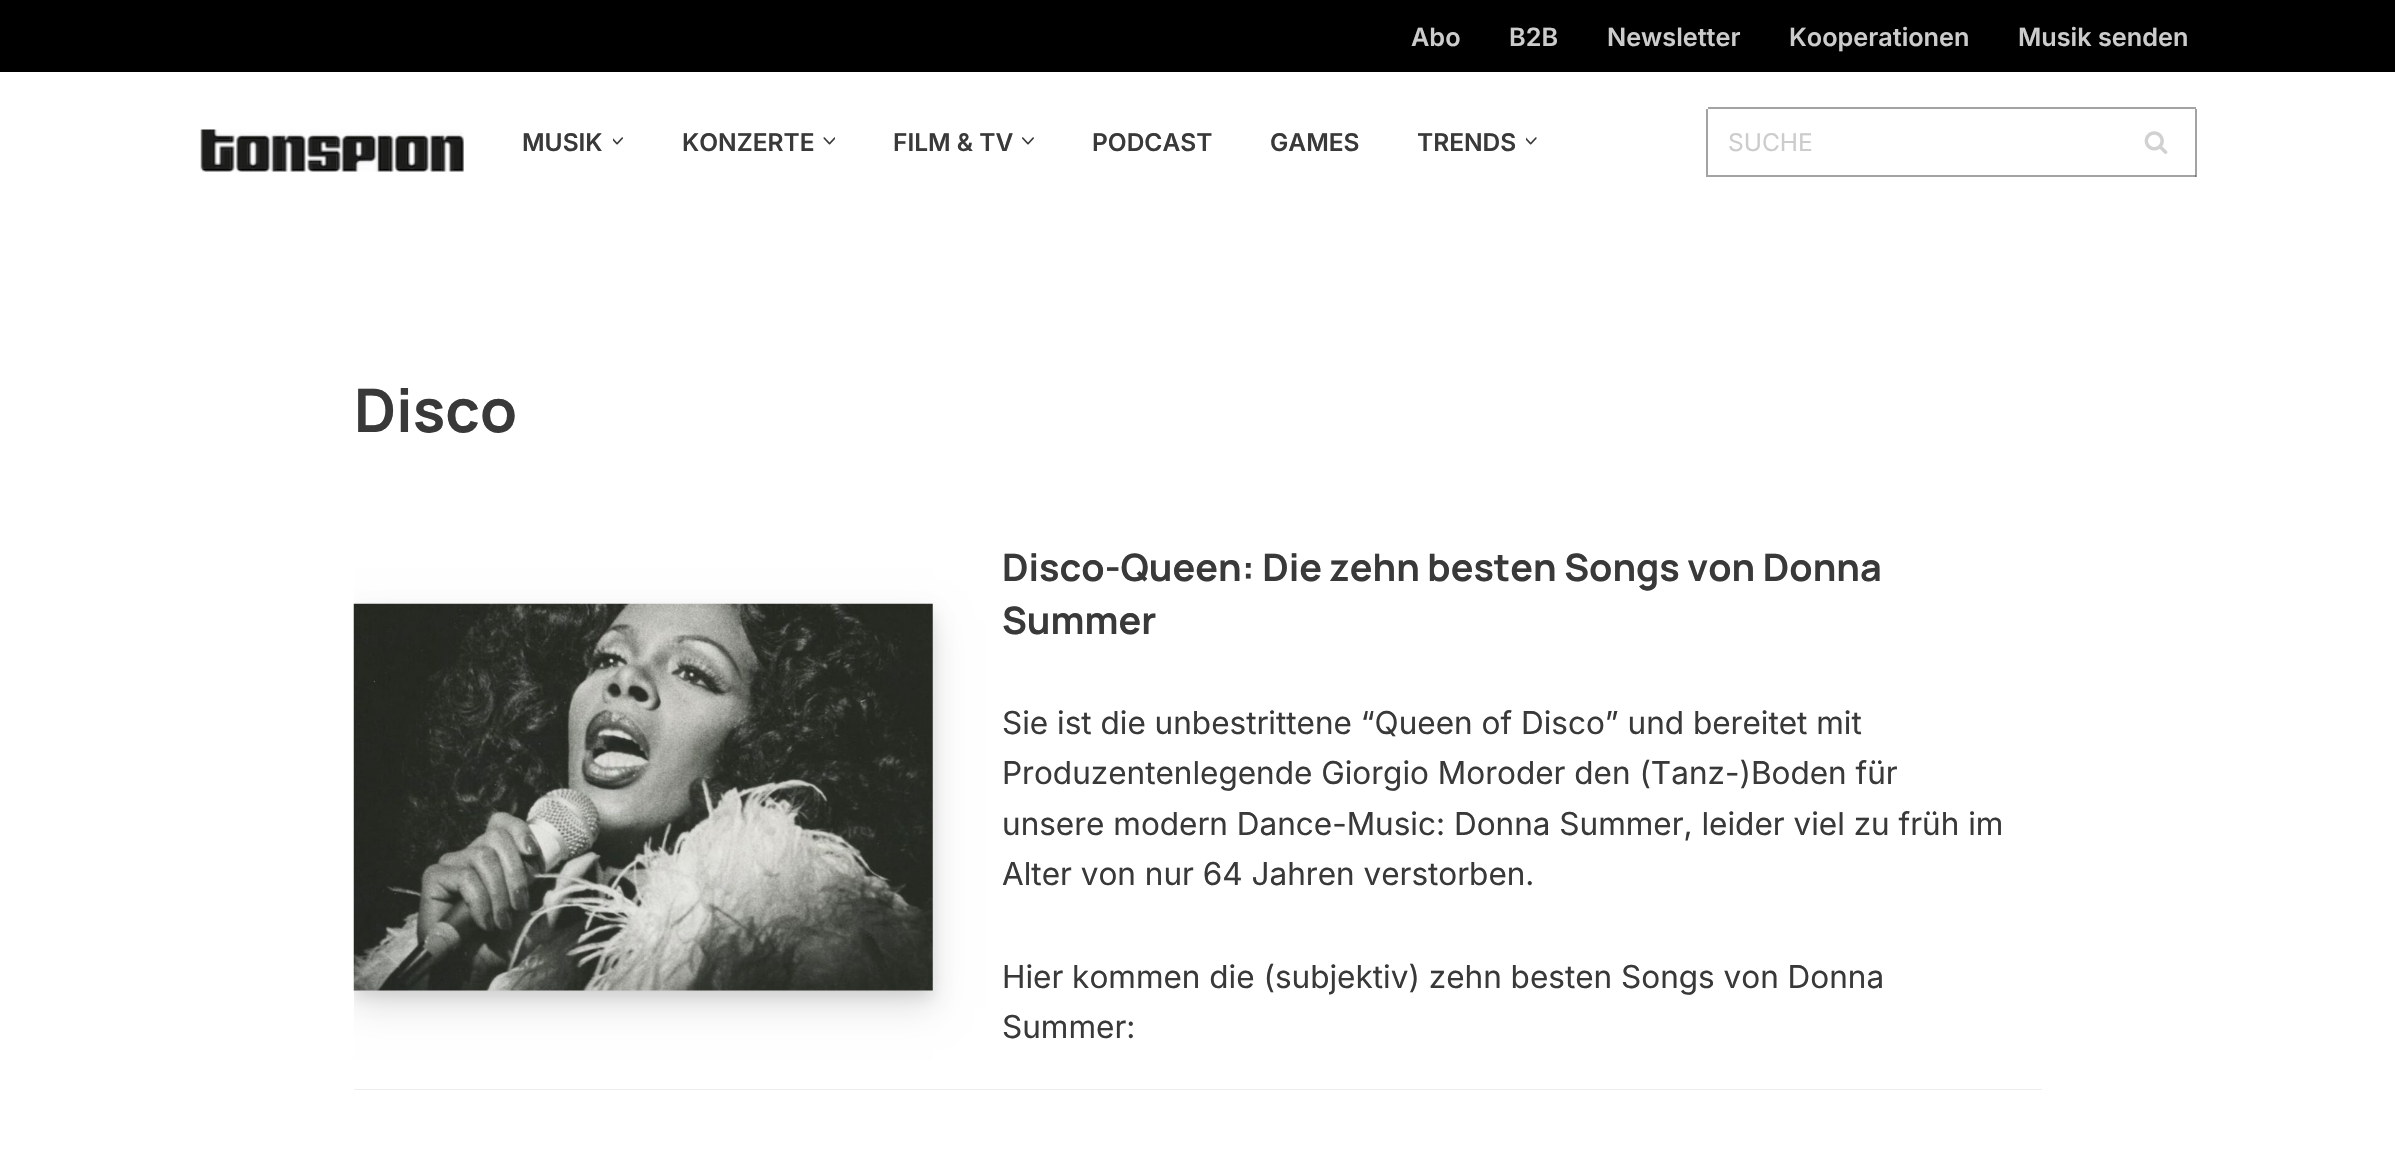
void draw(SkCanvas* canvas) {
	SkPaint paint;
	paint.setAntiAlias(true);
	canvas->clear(0xffffffff);
	paint.setColor(0xff000000);
	canvas->drawRect(SkRect::MakeXYWH(0, 0, 2395, 72), paint);
	SkFont f1(fontMgr->matchFamilyStyle("Inter", SkFontStyle(600, SkFontStyle::kNormal_Width, SkFontStyle::kUpright_Slant)), 25.25);
	f1.setSubpixel(true);
	paint.setColor(0xffcccccc);
	canvas->drawString("Abo", 1411, 46, f1, paint);
	canvas->drawString("B2B", 1509, 46, f1, paint);
	canvas->drawString("Newsletter", 1607, 46, f1, paint);
	canvas->drawString("Kooperationen", 1789, 46, f1, paint);
	canvas->drawString("Musik senden", 2018, 46, f1, paint);
	paint.setColor(0xffa3a3a3);
	canvas->drawRect(SkRect::MakeXYWH(1708, 175, 488, 2), paint);
	canvas->drawImageRect(SkImages::DeferredFromEncodedData(SkData::MakeFromFileName("img1.png")), SkRect::MakeXYWH(200, 129, 264, 43), SkSamplingOptions());
	SkFont f2(fontMgr->matchFamilyStyle("Inter", SkFontStyle(600, SkFontStyle::kNormal_Width, SkFontStyle::kUpright_Slant)), 24.5);
	f2.setSubpixel(true);
	paint.setColor(0xff393939);
	canvas->drawString("MUSIK", 522, 151, f2, paint);
	canvas->drawImageRect(SkImages::DeferredFromEncodedData(SkData::MakeFromFileName("img2.png")), SkRect::MakeXYWH(613, 137, 10, 8), SkSamplingOptions());
	canvas->drawString("KONZERTE", 682, 151, f2, paint);
	canvas->drawImageRect(SkImages::DeferredFromEncodedData(SkData::MakeFromFileName("img3.png")), SkRect::MakeXYWH(823, 137, 12, 8), SkSamplingOptions());
	canvas->drawString("FILM & TV", 893, 151, f2, paint);
	canvas->drawImageRect(SkImages::DeferredFromEncodedData(SkData::MakeFromFileName("img4.png")), SkRect::MakeXYWH(1022, 137, 12, 8), SkSamplingOptions());
	canvas->drawString("PODCAST", 1092, 151, f2, paint);
	canvas->drawString("GAMES", 1270, 151, f2, paint);
	canvas->drawString("TRENDS", 1417, 151, f2, paint);
	canvas->drawImageRect(SkImages::DeferredFromEncodedData(SkData::MakeFromFileName("img5.png")), SkRect::MakeXYWH(1526, 137, 11, 8), SkSamplingOptions());
	paint.setColor(0xffa3a3a3);
	canvas->drawRect(SkRect::MakeXYWH(1708, 107, 488, 2), paint);
	canvas->drawRect(SkRect::MakeXYWH(1706, 109, 2, 68), paint);
	SkFont f3(fontMgr->matchFamilyStyle("Inter", SkFontStyle::Normal()), 24.5);
	f3.setSubpixel(true);
	paint.setColor(0xffcccccc);
	canvas->drawString("SUCHE", 1728, 151, f3, paint);
	paint.setColor(0xffa3a3a3);
	canvas->drawRect(SkRect::MakeXYWH(2195, 109, 2, 68), paint);
	paint.setColor(0xff686868);
	canvas->drawRect(SkRect::MakeXYWH(2195, 175, 1, 2), paint);
	canvas->drawImageRect(SkImages::DeferredFromEncodedData(SkData::MakeFromFileName("img6.png")), SkRect::MakeXYWH(2144, 131, 24, 23), SkSamplingOptions());
	SkFont f4(fontMgr->matchFamilyStyle("Manrope", SkFontStyle::Bold()), 60);
	f4.setSubpixel(true);
	paint.setColor(0xff393939);
	canvas->drawString("Disco", 354, 432, f4, paint);
	paint.setColor(0xffededed);
	canvas->drawRect(SkRect::MakeXYWH(354, 1089, 1688, 1), paint);
	canvas->save();
	canvas->clipRect(SkRect::MakeXYWH(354, 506, 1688, 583));
	paint.setColor(0x1a000000);
	paint.setMaskFilter(SkMaskFilter::MakeBlur(kNormal_SkBlurStyle, 7));
	canvas->drawRect(SkRect::MakeXYWH(354, 611, 579, 387), paint);
	paint.setMaskFilter(nullptr);
	paint.setMaskFilter(SkMaskFilter::MakeBlur(kNormal_SkBlurStyle, 17.5));
	canvas->drawRect(SkRect::MakeXYWH(354, 621, 579, 387), paint);
	paint.setMaskFilter(nullptr);
	canvas->restore();
	canvas->drawImageRect(SkImages::DeferredFromEncodedData(SkData::MakeFromFileName("img7.png")), SkRect::MakeXYWH(353, 603, 580, 388), SkSamplingOptions());
	SkFont f5(fontMgr->matchFamilyStyle("Manrope", SkFontStyle::Bold()), 37.8);
	f5.setSubpixel(true);
	paint.setColor(0xff393939);
	canvas->drawString("Disco-Queen: Die zehn besten Songs von Donna", 1002, 581, f5, paint);
	canvas->drawString("Summer", 1002, 634, f5, paint);
	SkFont f6(fontMgr->matchFamilyStyle("Inter", SkFontStyle::Normal()), 31.5);
	f6.setSubpixel(true);
	canvas->drawString("Sie ist die unbestrittene “Queen of Disco” und bereitet mit", 1002, 734, f6, paint);
	canvas->drawString("Produzentenlegende Giorgio Moroder den (Tanz-)Boden für", 1002, 784, f6, paint);
	canvas->drawString("unsere modern Dance-Music: Donna Summer, leider viel zu früh im", 1002, 835, f6, paint);
	canvas->drawString("Alter von nur 64 Jahren verstorben.", 1002, 885, f6, paint);
	canvas->drawString("Hier kommen die (subjektiv) zehn besten Songs von Donna", 1002, 988, f6, paint);
	canvas->drawString("Summer:", 1002, 1038, f6, paint);
}
